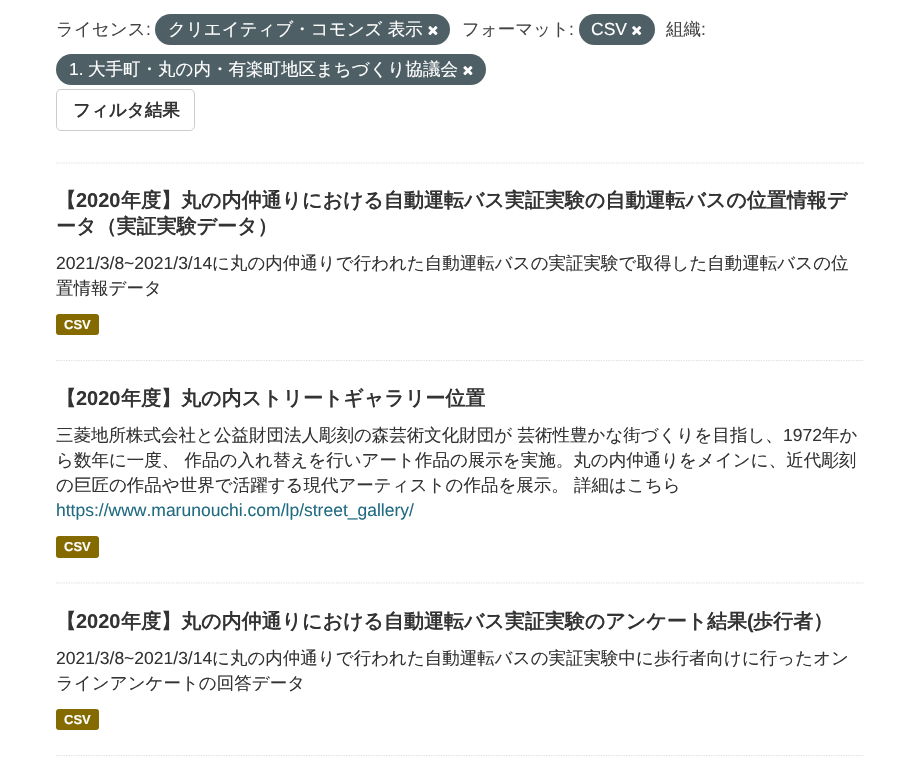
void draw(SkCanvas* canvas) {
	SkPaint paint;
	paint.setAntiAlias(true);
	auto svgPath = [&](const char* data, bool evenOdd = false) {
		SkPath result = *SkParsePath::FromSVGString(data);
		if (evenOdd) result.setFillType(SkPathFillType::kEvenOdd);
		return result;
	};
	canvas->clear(0xffffffff);
	paint.setStroke(true);
	paint.setStrokeWidth(1.2);
	paint.setColor(0xffdddddd);
	paint.setPathEffect(SkDashPathEffect::Make({{1.25f, 1.25f}}, 0));
	canvas->drawPath(svgPath("M56 163H864"), paint);
	paint.setPathEffect(nullptr);
	SkFont f1(fontMgr->matchFamilyStyle("WenQuanYi Zen Hei", SkFontStyle(500, SkFontStyle::kNormal_Width, SkFontStyle::kUpright_Slant)), 17.5);
	f1.setSubpixel(true);
	paint.setStroke(false);
	paint.setColor(0xff444444);
	canvas->drawString("ライセンス", 56, 35, f1, paint);
	SkFont f2(fontMgr->matchFamilyStyle("Liberation Sans", SkFontStyle::Normal()), 17.5);
	f2.setSubpixel(true);
	canvas->drawString(":", 146, 35, f2, paint);
	paint.setColor(0xff4e5f65);
	canvas->drawRoundRect(SkRect::MakeXYWH(155, 14, 295, 31), 15.5, 15.5, paint);
	paint.setColor(0xffffffff);
	canvas->drawString("クリエイティブ・コモンズ 表示", 168, 35, f1, paint);
	canvas->drawImageRect(SkImages::DeferredFromEncodedData(SkData::MakeFromFileName("img1.png")), SkRect::MakeXYWH(428, 26, 10, 10), SkSamplingOptions());
	paint.setColor(0xff444444);
	canvas->drawString("フォーマット", 462, 35, f1, paint);
	canvas->drawString(":", 569, 35, f2, paint);
	paint.setColor(0xff4e5f65);
	canvas->drawRoundRect(SkRect::MakeXYWH(579, 14, 76, 31), 15.5, 15.5, paint);
	paint.setColor(0xffffffff);
	canvas->drawString("CSV", 591, 35, f2, paint);
	canvas->drawImageRect(SkImages::DeferredFromEncodedData(SkData::MakeFromFileName("img2.png")), SkRect::MakeXYWH(632, 26, 10, 10), SkSamplingOptions());
	paint.setColor(0xff444444);
	canvas->drawString("組織", 666, 35, f1, paint);
	canvas->drawString(":", 701, 35, f2, paint);
	paint.setColor(0xff4e5f65);
	canvas->drawRoundRect(SkRect::MakeXYWH(56, 54, 430, 31), 15.5, 15.5, paint);
	paint.setColor(0xffffffff);
	canvas->drawString("1.", 69, 75, f2, paint);
	canvas->drawString("大手町・丸の内・有楽町地区まちづくり協議会", 88, 75, f1, paint);
	canvas->drawImageRect(SkImages::DeferredFromEncodedData(SkData::MakeFromFileName("img1.png")), SkRect::MakeXYWH(463, 66, 10, 10), SkSamplingOptions());
	paint.setStroke(true);
	paint.setStrokeWidth(1);
	paint.setColor(0xffcccccc);
	canvas->drawRoundRect(SkRect::MakeXYWH(56.5, 89.5, 138, 41), 4.5, 4.5, paint);
	SkFont f3(fontMgr->matchFamilyStyle("WenQuanYi Zen Hei", SkFontStyle::Bold()), 17.5);
	f3.setSubpixel(true);
	paint.setStroke(false);
	paint.setColor(0xff333333);
	canvas->drawString("フィルタ結果", 73, 116, f3, paint);
	paint.setStroke(true);
	paint.setStrokeWidth(1.2);
	paint.setColor(0xffdddddd);
	paint.setPathEffect(SkDashPathEffect::Make({{1.25f, 1.25f}}, 0));
	canvas->drawPath(svgPath("M56 360.5H864"), paint);
	paint.setPathEffect(nullptr);
	SkFont f4(fontMgr->matchFamilyStyle("WenQuanYi Zen Hei", SkFontStyle::Bold()), 20);
	f4.setSubpixel(true);
	paint.setStroke(false);
	paint.setColor(0xff333333);
	canvas->drawString("【", 56, 207, f4, paint);
	SkFont f5(fontMgr->matchFamilyStyle("Liberation Sans", SkFontStyle::Bold()), 20);
	f5.setSubpixel(true);
	canvas->drawString("2020", 76, 207, f5, paint);
	canvas->drawString("年度】丸の内仲通りにおける自動運転バス実証実験の自動運転バスの位置情報デ", 121, 207, f4, paint);
	canvas->drawString("ータ（実証実験データ）", 56, 233, f4, paint);
	canvas->drawString("2021/3/8~2021/3/14", 56, 269, f2, paint);
	canvas->drawString("に丸の内仲通りで行われた自動運転バスの実証実験で取得した自動運転バスの位", 212, 269, f1, paint);
	canvas->drawString("置情報データ", 56, 294, f1, paint);
	paint.setColor(0xff856a00);
	canvas->drawRoundRect(SkRect::MakeXYWH(56, 314, 43, 21), 3, 3, paint);
	SkFont f6(fontMgr->matchFamilyStyle("Liberation Sans", SkFontStyle::Bold()), 13);
	f6.setSubpixel(true);
	paint.setColor(0xffffffff);
	canvas->drawString("CSV", 64, 329, f6, paint);
	paint.setStroke(true);
	paint.setColor(0xffdddddd);
	paint.setPathEffect(SkDashPathEffect::Make({{1.25f, 1.25f}}, 0));
	canvas->drawPath(svgPath("M56 583H864"), paint);
	paint.setPathEffect(nullptr);
	paint.setStroke(false);
	paint.setColor(0xff333333);
	canvas->drawString("【", 56, 405, f4, paint);
	canvas->drawString("2020", 76, 405, f5, paint);
	canvas->drawString("年度】丸の内ストリートギャラリー位置", 121, 405, f4, paint);
	canvas->drawString("三菱地所株式会社と公益財団法人彫刻の森芸術文化財団が 芸術性豊かな街づくりを目指し、", 56, 441, f1, paint);
	canvas->drawString("1972", 783, 441, f2, paint);
	canvas->drawString("年か", 822, 441, f1, paint);
	canvas->drawString("ら数年に一度、 作品の入れ替えを行いアート作品の展示を実施。丸の内仲通りをメインに、近代彫刻", 56, 466, f1, paint);
	canvas->drawString("の巨匠の作品や世界で活躍する現代アーティストの作品を展示。 詳細はこちら", 56, 491, f1, paint);
	paint.setColor(0xff206b82);
	canvas->drawString("https://www.marunouchi.com/lp/street_gallery/", 56, 516, f2, paint);
	paint.setColor(0xff856a00);
	canvas->drawRoundRect(SkRect::MakeXYWH(56, 536, 43, 22), 3, 3, paint);
	paint.setColor(0xffffffff);
	canvas->drawString("CSV", 64, 551, f6, paint);
	paint.setStroke(true);
	paint.setColor(0xffdddddd);
	paint.setPathEffect(SkDashPathEffect::Make({{1.25f, 1.25f}}, 0));
	canvas->drawPath(svgPath("M56 755.5H864"), paint);
	paint.setPathEffect(nullptr);
	paint.setStroke(false);
	paint.setColor(0xff333333);
	canvas->drawString("【", 56, 628, f4, paint);
	canvas->drawString("2020", 76, 628, f5, paint);
	canvas->drawString("年度】丸の内仲通りにおける自動運転バス実証実験のアンケート結果", 121, 628, f4, paint);
	canvas->drawString("(", 747, 628, f5, paint);
	canvas->drawString("歩行者）", 753, 628, f4, paint);
	canvas->drawString("2021/3/8~2021/3/14", 56, 664, f2, paint);
	canvas->drawString("に丸の内仲通りで行われた自動運転バスの実証実験中に歩行者向けに行ったオン", 212, 664, f1, paint);
	canvas->drawString("ラインアンケートの回答データ", 56, 689, f1, paint);
	paint.setColor(0xff856a00);
	canvas->drawRoundRect(SkRect::MakeXYWH(56, 709, 43, 21), 3, 3, paint);
	paint.setColor(0xffffffff);
	canvas->drawString("CSV", 64, 724, f6, paint);
}
